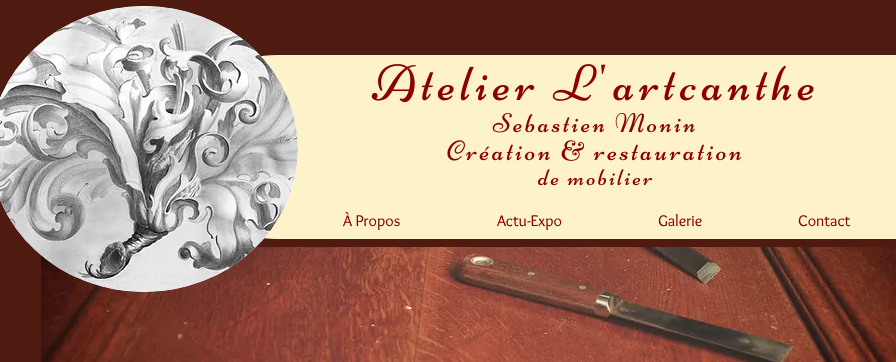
void draw(SkCanvas* canvas) {
	SkPaint paint;
	paint.setAntiAlias(true);
	auto svgPath = [&](const char* data, bool evenOdd = false) {
		SkPath result = *SkParsePath::FromSVGString(data);
		if (evenOdd) result.setFillType(SkPathFillType::kEvenOdd);
		return result;
	};
	canvas->clear(0xff4f1b11);
	paint.setColor(0xfffef3c8);
	canvas->drawPath(svgPath("M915 239H277C241 239 212 221 212 199V95C212 73 241 55 277 55H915C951 55 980 73 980 95V199C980 221 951 239 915 239Z"), paint);
	canvas->drawImageRect(SkImages::DeferredFromEncodedData(SkData::MakeFromFileName("img6.png")), SkRect::MakeXYWH(41, 247, 855, 115), SkSamplingOptions());
	paint.setColor(0xffffffff);
	canvas->drawOval(SkRect::MakeXYWH(-10, 6, 308, 286), paint);
	canvas->drawImageRect(SkImages::DeferredFromEncodedData(SkData::MakeFromFileName("img1.png")), SkRect::MakeXYWH(0, 6, 298, 286), SkSamplingOptions());
	canvas->drawImageRect(SkImages::DeferredFromEncodedData(SkData::MakeFromFileName("img2.png")), SkRect::MakeXYWH(371, 64, 443, 39), SkSamplingOptions());
	canvas->drawImageRect(SkImages::DeferredFromEncodedData(SkData::MakeFromFileName("img3.png")), SkRect::MakeXYWH(492, 113, 203, 20), SkSamplingOptions());
	canvas->drawImageRect(SkImages::DeferredFromEncodedData(SkData::MakeFromFileName("img4.png")), SkRect::MakeXYWH(447, 140, 294, 21), SkSamplingOptions());
	canvas->drawImageRect(SkImages::DeferredFromEncodedData(SkData::MakeFromFileName("img5.png")), SkRect::MakeXYWH(538, 169, 115, 17), SkSamplingOptions());
	SkFont f1(fontMgr->matchFamilyStyle("Overlock", SkFontStyle::Normal()), 16);
	f1.setSubpixel(true);
	paint.setColor(0xff8b0000);
	canvas->drawString("À Propos", 343, 226, f1, paint);
	canvas->drawString("Actu-Expo", 497, 226, f1, paint);
	canvas->drawString("Galerie", 658, 226, f1, paint);
	canvas->drawString("Contact", 798, 226, f1, paint);
}
